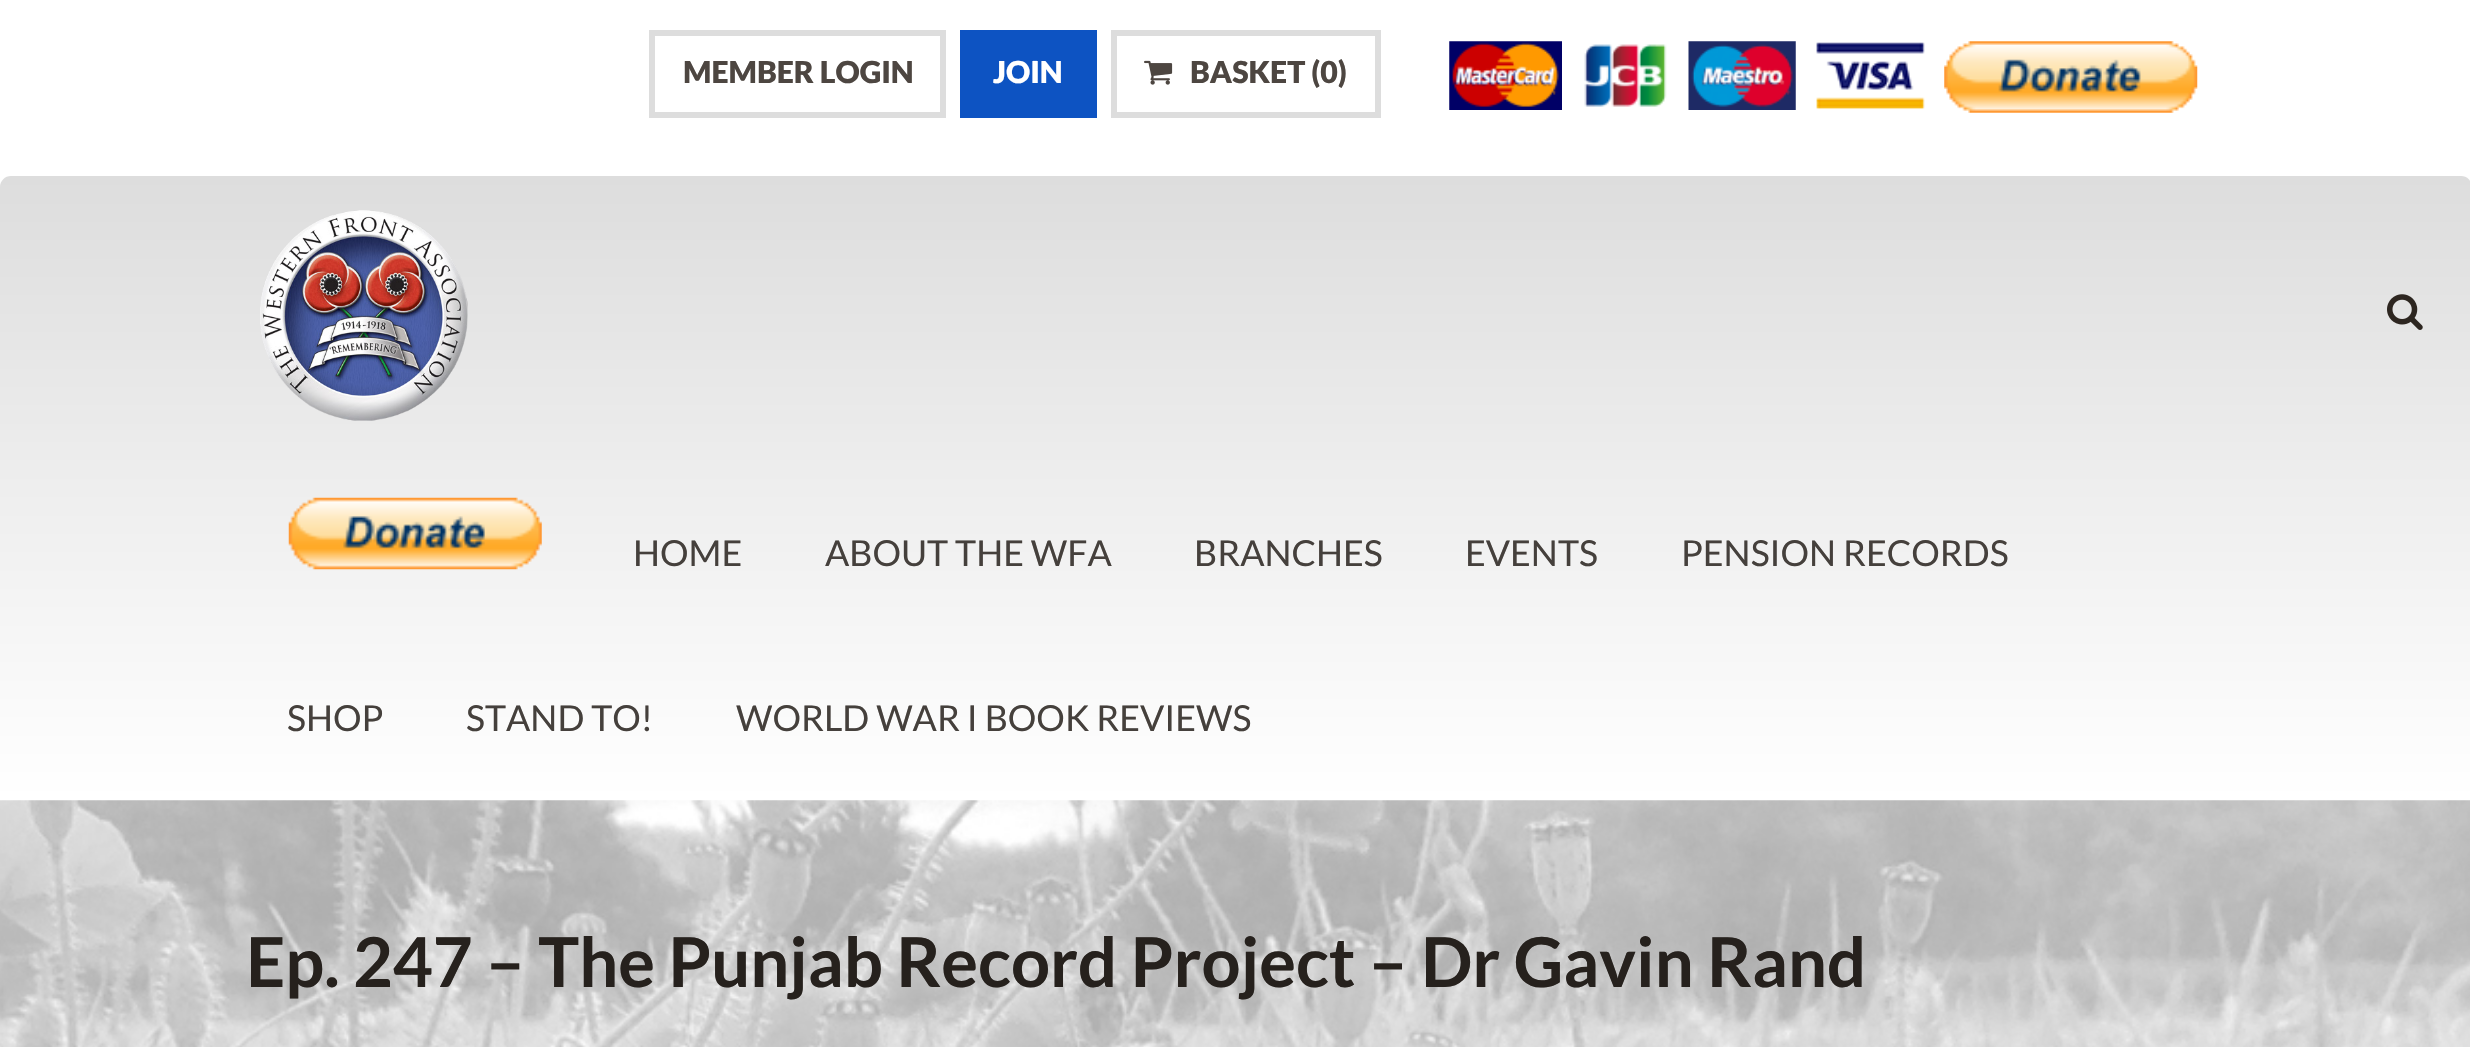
void draw(SkCanvas* canvas) {
	SkPaint paint;
	paint.setAntiAlias(true);
	canvas->clear(0xffffffff);
	paint.setStroke(true);
	paint.setStrokeWidth(6);
	paint.setColor(0xffdddddd);
	canvas->drawRect(SkRect::MakeXYWH(652, 33, 291, 82), paint);
	SkFont f1(fontMgr->matchFamilyStyle("Lato", SkFontStyle(900, SkFontStyle::kNormal_Width, SkFontStyle::kUpright_Slant)), 30.25);
	f1.setSubpixel(true);
	paint.setStroke(false);
	paint.setColor(0xff4d4641);
	canvas->drawString("MEMBER LOGIN", 683, 83, f1, paint);
	paint.setColor(0xff0d53c2);
	canvas->drawRect(SkRect::MakeXYWH(960, 30, 137, 88), paint);
	paint.setColor(0xffffffff);
	canvas->drawString("JOIN", 993, 83, f1, paint);
	paint.setStroke(true);
	paint.setColor(0xffdddddd);
	canvas->drawRect(SkRect::MakeXYWH(1114, 33, 264, 82), paint);
	canvas->drawImageRect(SkImages::DeferredFromEncodedData(SkData::MakeFromFileName("img1.png")), SkRect::MakeXYWH(1144, 60, 29, 25), SkSamplingOptions());
	paint.setStroke(false);
	paint.setColor(0xff4d4641);
	canvas->drawString("BASKET (0)", 1190, 83, f1, paint);
	canvas->drawImageRect(SkImages::DeferredFromEncodedData(SkData::MakeFromFileName("img2.png")), SkRect::MakeXYWH(1449, 41, 113, 69), SkSamplingOptions());
	canvas->drawImageRect(SkImages::DeferredFromEncodedData(SkData::MakeFromFileName("img3.png")), SkRect::MakeXYWH(1584, 44, 83, 63), SkSamplingOptions());
	canvas->drawImageRect(SkImages::DeferredFromEncodedData(SkData::MakeFromFileName("img4.png")), SkRect::MakeXYWH(1688, 41, 108, 69), SkSamplingOptions());
	canvas->drawImageRect(SkImages::DeferredFromEncodedData(SkData::MakeFromFileName("img5.png")), SkRect::MakeXYWH(1816, 42, 109, 68), SkSamplingOptions());
	canvas->drawImageRect(SkImages::DeferredFromEncodedData(SkData::MakeFromFileName("img6.png")), SkRect::MakeXYWH(1944, 41, 254, 72), SkSamplingOptions());
	{
		const SkColor colors[] = {0xffdddddd, 0xffffffff};
		const float stops[] = {0, 1};
		const SkPoint ends[] = {{1236, 176}, {1236, 800}};
		paint.setShader(SkGradientShader::MakeLinear(ends, colors, stops, 2, SkTileMode::kClamp));
		paint.setAlpha(255);
	}
	canvas->drawRoundRect(SkRect::MakeXYWH(0, 176, 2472, 624), 11, 11, paint);
	canvas->drawImageRect(SkImages::DeferredFromEncodedData(SkData::MakeFromFileName("img7.png")), SkRect::MakeXYWH(260, 210, 208, 211), SkSamplingOptions());
	canvas->drawImageRect(SkImages::DeferredFromEncodedData(SkData::MakeFromFileName("img8.png")), SkRect::MakeXYWH(2387, 294, 36, 36), SkSamplingOptions());
	canvas->drawImageRect(SkImages::DeferredFromEncodedData(SkData::MakeFromFileName("img9.png")), SkRect::MakeXYWH(288, 497, 254, 73), SkSamplingOptions());
	SkFont f2(fontMgr->matchFamilyStyle("Lato", SkFontStyle::Normal()), 35.75);
	f2.setSubpixel(true);
	paint.setShader(nullptr);
	paint.setColor(0xff45403c);
	canvas->drawString("HOME", 633, 566, f2, paint);
	canvas->drawString("ABOUT THE WFA", 825, 566, f2, paint);
	canvas->drawString("BRANCHES", 1194, 566, f2, paint);
	canvas->drawString("EVENTS", 1465, 566, f2, paint);
	canvas->drawString("PENSION RECORDS", 1681, 566, f2, paint);
	canvas->drawString("SHOP", 287, 731, f2, paint);
	canvas->drawString("STAND TO!", 466, 731, f2, paint);
	canvas->drawString("WORLD WAR I BOOK REVIEWS", 736, 731, f2, paint);
	canvas->drawImageRect(SkImages::DeferredFromEncodedData(SkData::MakeFromFileName("img10.png")), SkRect::MakeXYWH(0, 800, 2470, 247), SkSamplingOptions());
	SkFont f3(fontMgr->matchFamilyStyle("Lato", SkFontStyle::Bold()), 68.75);
	f3.setSubpixel(true);
	paint.setColor(0xff26211d);
	canvas->drawString("Ep. 247 – The Punjab Record Project – Dr Gavin Rand", 246, 987, f3, paint);
}
